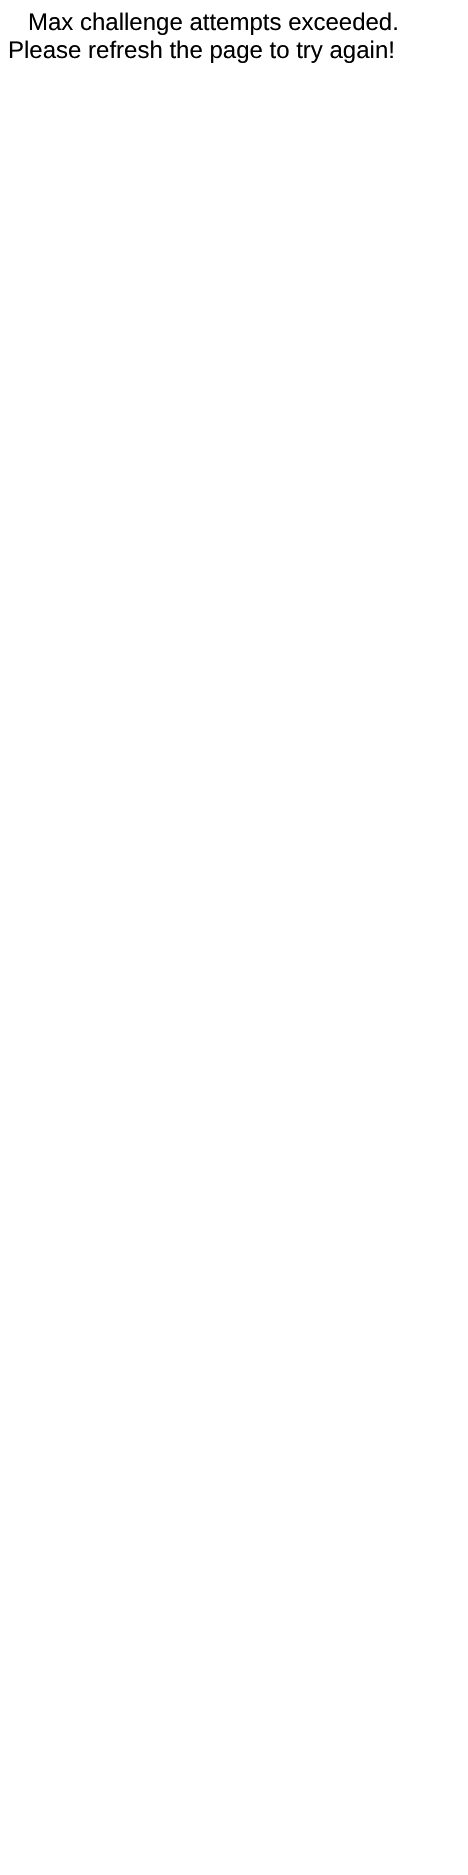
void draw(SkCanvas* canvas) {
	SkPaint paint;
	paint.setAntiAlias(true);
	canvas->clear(0xffffffff);
	SkFont f1(fontMgr->matchFamilyStyle("Liberation Sans", SkFontStyle::Normal()), 24);
	f1.setSubpixel(true);
	paint.setColor(0xff000000);
	canvas->drawString("Max challenge attempts exceeded.", 28, 30, f1, paint);
	canvas->drawString("Please refresh the page to try again!", 8, 58, f1, paint);
}
